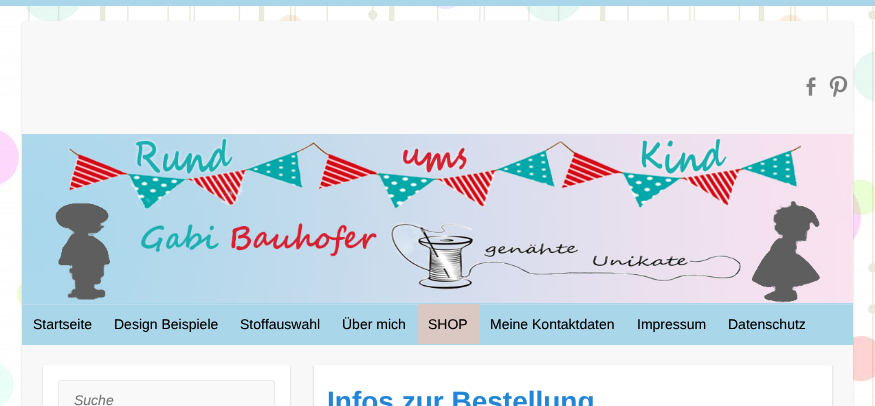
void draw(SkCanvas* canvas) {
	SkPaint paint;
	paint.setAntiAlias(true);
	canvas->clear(0xffffffff);
	canvas->drawImageRect(SkImages::DeferredFromEncodedData(SkData::MakeFromFileName("img1.png")), SkRect::MakeXYWH(0, 6, 875, 400), SkSamplingOptions());
	paint.setColor(0xffa9d6e8);
	canvas->drawRect(SkRect::MakeXYWH(0, 0, 875, 6), paint);
	paint.setColor(0x33000000);
	paint.setMaskFilter(SkMaskFilter::MakeBlur(kNormal_SkBlurStyle, 1));
	canvas->drawRoundRect(SkRect::MakeXYWH(22, 22, 831, 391), 4, 4, paint);
	paint.setMaskFilter(nullptr);
	paint.setColor(0xfff8f8f8);
	canvas->drawRoundRect(SkRect::MakeXYWH(22, 21, 831, 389), 4, 4, paint);
	canvas->drawImageRect(SkImages::DeferredFromEncodedData(SkData::MakeFromFileName("img2.png")), SkRect::MakeXYWH(806, 77, 10, 19), SkSamplingOptions());
	canvas->drawImageRect(SkImages::DeferredFromEncodedData(SkData::MakeFromFileName("img3.png")), SkRect::MakeXYWH(829, 76, 19, 21), SkSamplingOptions());
	canvas->drawImageRect(SkImages::DeferredFromEncodedData(SkData::MakeFromFileName("img4.png")), SkRect::MakeXYWH(22, 134, 831, 169), SkSamplingOptions());
	paint.setColor(0xffa9d6e8);
	canvas->drawRect(SkRect::MakeXYWH(22, 303, 831, 42), paint);
	paint.setColor(0xffbadeed);
	canvas->drawRect(SkRect::MakeXYWH(23, 304, 829, 1), paint);
	SkFont f1(fontMgr->matchFamilyStyle("Liberation Sans", SkFontStyle::Normal()), 14);
	f1.setSubpixel(true);
	paint.setColor(0xff000000);
	canvas->drawString("Startseite", 33, 329, f1, paint);
	canvas->drawString("Design Beispiele", 114, 329, f1, paint);
	canvas->drawString("Stoffauswahl", 240, 329, f1, paint);
	canvas->drawString("Über mich", 342, 329, f1, paint);
	paint.setColor(0xffdbc8c3);
	canvas->drawRect(SkRect::MakeXYWH(418, 304, 62, 40), paint);
	paint.setColor(0xff000000);
	canvas->drawString("SHOP", 428, 329, f1, paint);
	canvas->drawString("Meine Kontaktdaten", 490, 329, f1, paint);
	canvas->drawString("Impressum", 637, 329, f1, paint);
	canvas->drawString("Datenschutz", 728, 329, f1, paint);
	paint.setColor(0x33000000);
	paint.setMaskFilter(SkMaskFilter::MakeBlur(kNormal_SkBlurStyle, 1));
	canvas->drawRoundRect(SkRect::MakeXYWH(43, 366, 247, 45), 2, 2, paint);
	paint.setMaskFilter(nullptr);
	paint.setColor(0xffffffff);
	canvas->drawRoundRect(SkRect::MakeXYWH(43, 365, 247, 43), 2, 2, paint);
	paint.setColor(0xfff9f9f9);
	canvas->drawRoundRect(SkRect::MakeXYWH(58.5, 380.5, 216, 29), 2.5, 2.5, paint);
	paint.setStroke(true);
	paint.setStrokeWidth(1);
	paint.setColor(0xffeaeaea);
	canvas->drawRoundRect(SkRect::MakeXYWH(58.5, 380.5, 216, 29), 2.5, 2.5, paint);
	SkFont f2(fontMgr->matchFamilyStyle("Liberation Sans", SkFontStyle::Italic()), 14);
	f2.setSubpixel(true);
	paint.setStroke(false);
	paint.setColor(0xff757575);
	canvas->drawString("Suche", 74, 405, f2, paint);
	paint.setColor(0x33000000);
	paint.setMaskFilter(SkMaskFilter::MakeBlur(kNormal_SkBlurStyle, 1));
	canvas->drawRect(SkRect::MakeXYWH(314, 366, 518, 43), paint);
	paint.setMaskFilter(nullptr);
	paint.setColor(0xffffffff);
	canvas->drawRect(SkRect::MakeXYWH(314, 365, 518, 41), paint);
	SkFont f3(fontMgr->matchFamilyStyle("Liberation Sans", SkFontStyle::Bold()), 28);
	f3.setSubpixel(true);
	paint.setColor(0xff2285d6);
	canvas->drawString("Infos zur Bestellung", 327, 411, f3, paint);
}
